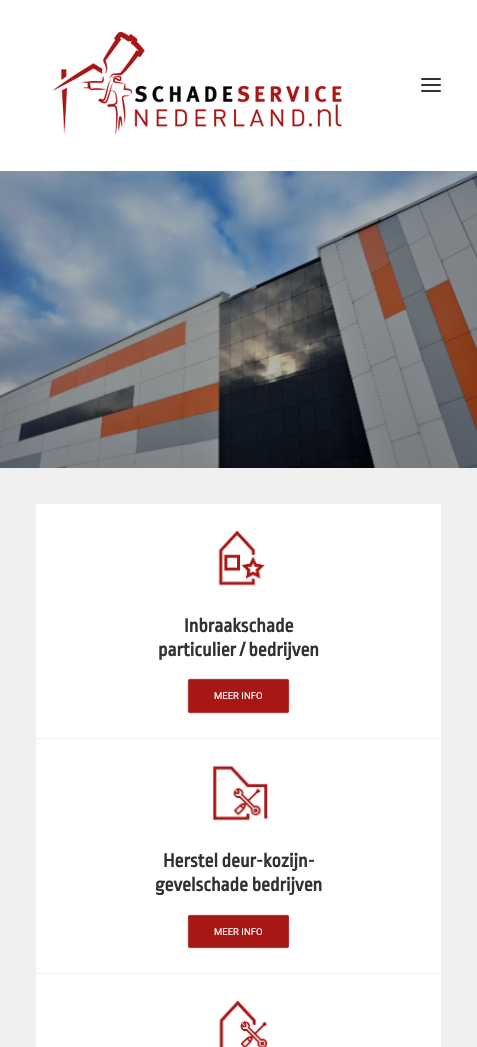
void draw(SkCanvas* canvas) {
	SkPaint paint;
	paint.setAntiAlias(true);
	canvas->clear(0xfff0f0f1);
	paint.setColor(0xffffffff);
	canvas->drawRect(SkRect::MakeXYWH(0, 0, 477, 171), paint);
	canvas->drawImageRect(SkImages::DeferredFromEncodedData(SkData::MakeFromFileName("img1.png")), SkRect::MakeXYWH(53, 32, 289, 103), SkSamplingOptions());
	paint.setColor(0xff303133);
	canvas->drawRoundRect(SkRect::MakeXYWH(421, 84, 20, 2), 1, 1, paint);
	canvas->drawRoundRect(SkRect::MakeXYWH(421, 78, 20, 2), 1, 1, paint);
	canvas->drawRoundRect(SkRect::MakeXYWH(421, 90, 20, 2), 1, 1, paint);
	canvas->drawImageRect(SkImages::DeferredFromEncodedData(SkData::MakeFromFileName("img2.png")), SkRect::MakeXYWH(0, 171, 477, 297), SkSamplingOptions());
	paint.setColor(0xffffffff);
	canvas->drawRect(SkRect::MakeXYWH(36, 504, 405, 234), paint);
	canvas->drawImageRect(SkImages::DeferredFromEncodedData(SkData::MakeFromFileName("img3.png")), SkRect::MakeXYWH(218, 530, 48, 56), SkSamplingOptions());
	SkFont f1(fontMgr->matchFamilyStyle("Ropa Sans", SkFontStyle::Bold()), 20);
	f1.setSubpixel(true);
	paint.setColor(0xff303133);
	canvas->drawString("Inbraakschade", 184, 632, f1, paint);
	canvas->drawString("particulier / bedrijven", 158, 656, f1, paint);
	paint.setColor(0xffa71815);
	canvas->drawRoundRect(SkRect::MakeXYWH(188.4, 679.4, 100.2, 33.2), 1.1, 1.1, paint);
	paint.setStroke(true);
	paint.setStrokeWidth(0.8);
	canvas->drawRoundRect(SkRect::MakeXYWH(188.4, 679.4, 100.2, 33.2), 1.1, 1.1, paint);
	SkFont f2(fontMgr->matchFamilyStyle("Roboto", SkFontStyle::Normal()), 9.5);
	f2.setSubpixel(true);
	paint.setStroke(false);
	paint.setColor(0xffffffff);
	canvas->drawString("MEER INFO", 214, 699, f2, paint);
	canvas->drawRect(SkRect::MakeXYWH(36, 739, 405, 234), paint);
	canvas->drawImageRect(SkImages::DeferredFromEncodedData(SkData::MakeFromFileName("img4.png")), SkRect::MakeXYWH(212, 765, 56, 56), SkSamplingOptions());
	paint.setColor(0xff303133);
	canvas->drawString("Herstel deur-kozijn-", 163, 867, f1, paint);
	canvas->drawString("gevelschade bedrijven", 155, 891, f1, paint);
	paint.setColor(0xffa71815);
	canvas->drawRoundRect(SkRect::MakeXYWH(188.4, 915.4, 100.2, 32.2), 1.1, 1.1, paint);
	paint.setStroke(true);
	canvas->drawRoundRect(SkRect::MakeXYWH(188.4, 915.4, 100.2, 32.2), 1.1, 1.1, paint);
	paint.setStroke(false);
	paint.setColor(0xffffffff);
	canvas->drawString("MEER INFO", 214, 935, f2, paint);
	canvas->drawRect(SkRect::MakeXYWH(36, 974, 405, 73), paint);
	canvas->drawImageRect(SkImages::DeferredFromEncodedData(SkData::MakeFromFileName("img5.png")), SkRect::MakeXYWH(219, 1000, 49, 47), SkSamplingOptions());
}
